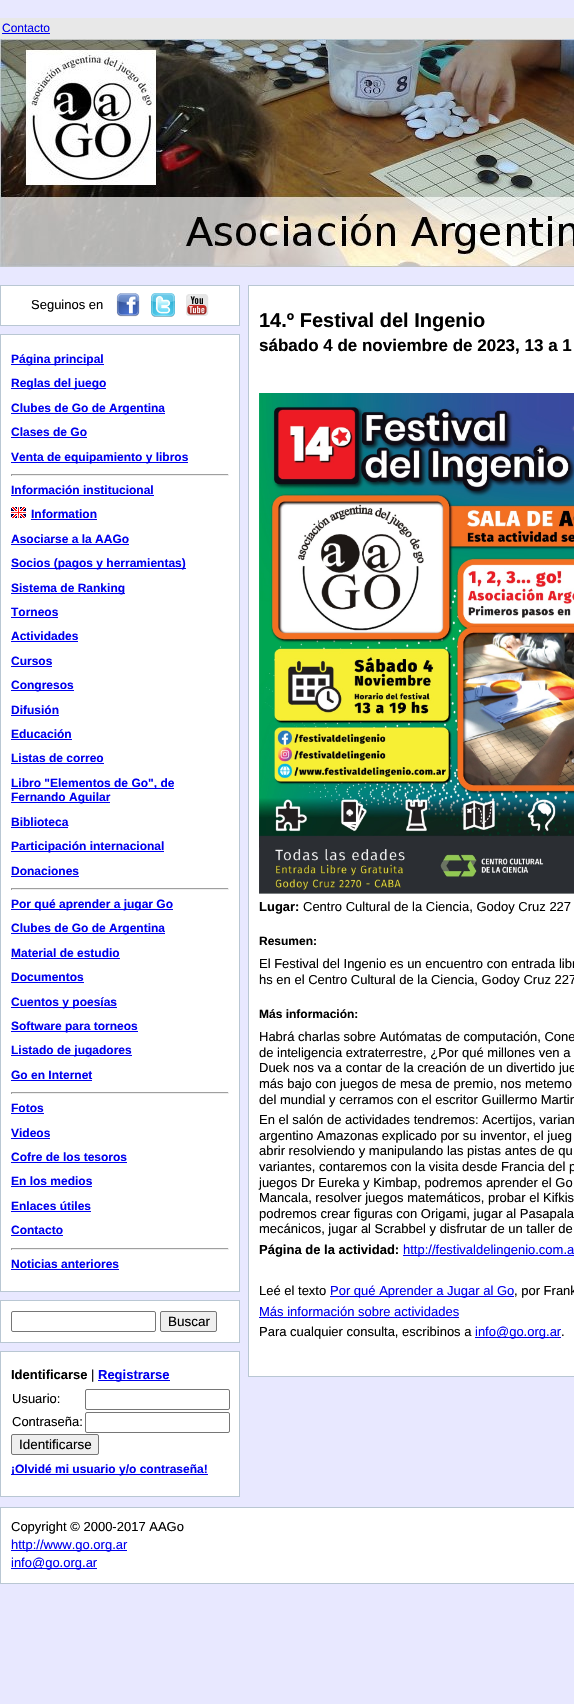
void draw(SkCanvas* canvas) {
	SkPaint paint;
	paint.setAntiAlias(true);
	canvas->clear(0xffe8e8ff);
	paint.setColor(0xffe8e8e8);
	canvas->drawRect(SkRect::MakeXYWH(0, 18, 574, 21), paint);
	SkFont f1(fontMgr->matchFamilyStyle("Liberation Sans", SkFontStyle::Normal()), 12);
	f1.setSubpixel(true);
	paint.setColor(0xff0000ee);
	canvas->drawString("Contacto", 2, 32, f1, paint);
	canvas->drawRect(SkRect::MakeXYWH(2, 33, 48, 1), paint);
	canvas->drawImageRect(SkImages::DeferredFromEncodedData(SkData::MakeFromFileName("img1.png")), SkRect::MakeXYWH(0, 39, 574, 228), SkSamplingOptions());
	paint.setColor(0xffffffff);
	canvas->drawRect(SkRect::MakeXYWH(0.5, 285.5, 239, 40), paint);
	paint.setStroke(true);
	paint.setStrokeWidth(1);
	paint.setColor(0xffb9c7d3);
	canvas->drawRect(SkRect::MakeXYWH(0.5, 285.5, 239, 40), paint);
	SkFont f2(fontMgr->matchFamilyStyle("Liberation Sans", SkFontStyle::Normal()), 13);
	f2.setSubpixel(true);
	paint.setStroke(false);
	paint.setColor(0xff000000);
	canvas->drawString("Seguinos en", 31, 309, f2, paint);
	canvas->drawImageRect(SkImages::DeferredFromEncodedData(SkData::MakeFromFileName("img2.png")), SkRect::MakeXYWH(116, 293, 24, 24), SkSamplingOptions());
	canvas->drawImageRect(SkImages::DeferredFromEncodedData(SkData::MakeFromFileName("img3.png")), SkRect::MakeXYWH(151, 293, 24, 24), SkSamplingOptions());
	canvas->drawImageRect(SkImages::DeferredFromEncodedData(SkData::MakeFromFileName("img4.png")), SkRect::MakeXYWH(186, 294, 23, 22), SkSamplingOptions());
	paint.setColor(0xffffffff);
	canvas->drawRect(SkRect::MakeXYWH(0.5, 334.5, 239, 957), paint);
	paint.setStroke(true);
	paint.setColor(0xffb9c7d3);
	canvas->drawRect(SkRect::MakeXYWH(0.5, 334.5, 239, 957), paint);
	paint.setStroke(false);
	paint.setColor(0xff0000ee);
	canvas->drawRect(SkRect::MakeXYWH(11, 364, 93, 1), paint);
	SkFont f3(fontMgr->matchFamilyStyle("Liberation Sans", SkFontStyle::Bold()), 12);
	f3.setSubpixel(true);
	canvas->drawString("Página principal", 11, 363, f3, paint);
	canvas->drawRect(SkRect::MakeXYWH(11, 388, 95, 1), paint);
	canvas->drawString("Reglas del juego", 11, 387, f3, paint);
	canvas->drawRect(SkRect::MakeXYWH(11, 413, 154, 1), paint);
	canvas->drawString("Clubes de Go de Argentina", 11, 412, f3, paint);
	canvas->drawString("Clases de Go", 11, 436, f3, paint);
	canvas->drawRect(SkRect::MakeXYWH(11, 437, 76, 1), paint);
	canvas->drawRect(SkRect::MakeXYWH(11, 462, 177, 1), paint);
	canvas->drawString("Venta de equipamiento y libros", 11, 461, f3, paint);
	paint.setColor(0xff9f9f9f);
	canvas->drawRect(SkRect::MakeXYWH(11, 474, 218, 1), paint);
	paint.setColor(0xffeeeeee);
	canvas->drawRect(SkRect::MakeXYWH(228, 474, 1, 2), paint);
	canvas->drawRect(SkRect::MakeXYWH(11, 475, 218, 1), paint);
	paint.setColor(0xff9f9f9f);
	canvas->drawRect(SkRect::MakeXYWH(11, 474, 1, 2), paint);
	paint.setColor(0xff0000ee);
	canvas->drawString("Información institucional", 11, 494, f3, paint);
	canvas->drawRect(SkRect::MakeXYWH(11, 495, 143, 1), paint);
	canvas->drawImageRect(SkImages::DeferredFromEncodedData(SkData::MakeFromFileName("img5.png")), SkRect::MakeXYWH(11, 507, 15, 11), SkSamplingOptions());
	canvas->drawString("Information", 31, 518, f3, paint);
	canvas->drawRect(SkRect::MakeXYWH(31, 519, 66, 1), paint);
	canvas->drawString("Asociarse a la AAGo", 11, 543, f3, paint);
	canvas->drawRect(SkRect::MakeXYWH(11, 544, 118, 1), paint);
	canvas->drawRect(SkRect::MakeXYWH(11, 568, 175, 1), paint);
	canvas->drawString("Socios (pagos y herramientas)", 11, 567, f3, paint);
	canvas->drawRect(SkRect::MakeXYWH(11, 593, 114, 1), paint);
	canvas->drawString("Sistema de Ranking", 11, 592, f3, paint);
	canvas->drawString("Torneos", 11, 616, f3, paint);
	canvas->drawRect(SkRect::MakeXYWH(11, 617, 47, 1), paint);
	canvas->drawString("Actividades", 11, 640, f3, paint);
	canvas->drawRect(SkRect::MakeXYWH(11, 641, 67, 1), paint);
	canvas->drawString("Cursos", 11, 665, f3, paint);
	canvas->drawRect(SkRect::MakeXYWH(11, 666, 41, 1), paint);
	canvas->drawRect(SkRect::MakeXYWH(11, 690, 63, 1), paint);
	canvas->drawString("Congresos", 11, 689, f3, paint);
	canvas->drawString("Difusión", 11, 714, f3, paint);
	canvas->drawRect(SkRect::MakeXYWH(11, 715, 48, 1), paint);
	canvas->drawString("Educación", 11, 738, f3, paint);
	canvas->drawRect(SkRect::MakeXYWH(11, 739, 61, 1), paint);
	canvas->drawString("Listas de correo", 11, 762, f3, paint);
	canvas->drawRect(SkRect::MakeXYWH(11, 763, 93, 1), paint);
	canvas->drawRect(SkRect::MakeXYWH(11, 788, 163, 1), paint);
	canvas->drawString("Libro \"Elementos de Go\", de", 11, 787, f3, paint);
	canvas->drawRect(SkRect::MakeXYWH(11, 802, 99, 1), paint);
	canvas->drawString("Fernando Aguilar", 11, 801, f3, paint);
	canvas->drawString("Biblioteca", 11, 826, f3, paint);
	canvas->drawRect(SkRect::MakeXYWH(11, 827, 57, 1), paint);
	canvas->drawRect(SkRect::MakeXYWH(11, 851, 153, 1), paint);
	canvas->drawString("Participación internacional", 11, 850, f3, paint);
	canvas->drawString("Donaciones", 11, 875, f3, paint);
	canvas->drawRect(SkRect::MakeXYWH(11, 876, 68, 1), paint);
	paint.setColor(0xff9f9f9f);
	canvas->drawRect(SkRect::MakeXYWH(11, 888, 218, 1), paint);
	paint.setColor(0xffeeeeee);
	canvas->drawRect(SkRect::MakeXYWH(228, 888, 1, 2), paint);
	canvas->drawRect(SkRect::MakeXYWH(11, 889, 218, 1), paint);
	paint.setColor(0xff9f9f9f);
	canvas->drawRect(SkRect::MakeXYWH(11, 888, 1, 2), paint);
	paint.setColor(0xff0000ee);
	canvas->drawRect(SkRect::MakeXYWH(11, 909, 162, 1), paint);
	canvas->drawString("Por qué aprender a jugar Go", 11, 908, f3, paint);
	canvas->drawRect(SkRect::MakeXYWH(11, 933, 154, 1), paint);
	canvas->drawString("Clubes de Go de Argentina", 11, 932, f3, paint);
	canvas->drawString("Material de estudio", 11, 957, f3, paint);
	canvas->drawRect(SkRect::MakeXYWH(11, 958, 109, 1), paint);
	canvas->drawString("Documentos", 11, 981, f3, paint);
	canvas->drawRect(SkRect::MakeXYWH(11, 982, 73, 1), paint);
	canvas->drawRect(SkRect::MakeXYWH(11, 1007, 106, 1), paint);
	canvas->drawString("Cuentos y poesías", 11, 1006, f3, paint);
	canvas->drawRect(SkRect::MakeXYWH(11, 1031, 127, 1), paint);
	canvas->drawString("Software para torneos", 11, 1030, f3, paint);
	canvas->drawRect(SkRect::MakeXYWH(11, 1055, 121, 1), paint);
	canvas->drawString("Listado de jugadores", 11, 1054, f3, paint);
	canvas->drawString("Go en Internet", 11, 1079, f3, paint);
	canvas->drawRect(SkRect::MakeXYWH(11, 1080, 81, 1), paint);
	paint.setColor(0xff9f9f9f);
	canvas->drawRect(SkRect::MakeXYWH(11, 1092, 218, 1), paint);
	paint.setColor(0xffeeeeee);
	canvas->drawRect(SkRect::MakeXYWH(228, 1092, 1, 2), paint);
	canvas->drawRect(SkRect::MakeXYWH(11, 1093, 218, 1), paint);
	paint.setColor(0xff9f9f9f);
	canvas->drawRect(SkRect::MakeXYWH(11, 1092, 1, 2), paint);
	paint.setColor(0xff0000ee);
	canvas->drawString("Fotos", 11, 1112, f3, paint);
	canvas->drawRect(SkRect::MakeXYWH(11, 1113, 33, 1), paint);
	canvas->drawString("Videos", 11, 1137, f3, paint);
	canvas->drawRect(SkRect::MakeXYWH(11, 1138, 39, 1), paint);
	canvas->drawString("Cofre de los tesoros", 11, 1161, f3, paint);
	canvas->drawRect(SkRect::MakeXYWH(11, 1162, 116, 1), paint);
	canvas->drawString("En los medios", 11, 1185, f3, paint);
	canvas->drawRect(SkRect::MakeXYWH(11, 1186, 81, 1), paint);
	canvas->drawString("Enlaces útiles", 11, 1210, f3, paint);
	canvas->drawRect(SkRect::MakeXYWH(11, 1211, 80, 1), paint);
	canvas->drawString("Contacto", 11, 1234, f3, paint);
	canvas->drawRect(SkRect::MakeXYWH(11, 1235, 52, 1), paint);
	paint.setColor(0xff9f9f9f);
	canvas->drawRect(SkRect::MakeXYWH(11, 1248, 218, 1), paint);
	paint.setColor(0xffeeeeee);
	canvas->drawRect(SkRect::MakeXYWH(228, 1248, 1, 2), paint);
	canvas->drawRect(SkRect::MakeXYWH(11, 1249, 218, 1), paint);
	paint.setColor(0xff9f9f9f);
	canvas->drawRect(SkRect::MakeXYWH(11, 1248, 1, 2), paint);
	paint.setColor(0xff0000ee);
	canvas->drawString("Noticias anteriores", 11, 1268, f3, paint);
	canvas->drawRect(SkRect::MakeXYWH(11, 1269, 108, 1), paint);
	paint.setColor(0xffffffff);
	canvas->drawRect(SkRect::MakeXYWH(0.5, 1300.5, 239, 42), paint);
	paint.setStroke(true);
	paint.setColor(0xffb9c7d3);
	canvas->drawRect(SkRect::MakeXYWH(0.5, 1300.5, 239, 42), paint);
	paint.setColor(0xff767676);
	canvas->drawRoundRect(SkRect::MakeXYWH(11.5, 1311.5, 144, 20), 1.5, 1.5, paint);
	paint.setStroke(false);
	paint.setColor(0xffefefef);
	canvas->drawRoundRect(SkRect::MakeXYWH(160.5, 1311.5, 56, 20), 1.5, 1.5, paint);
	paint.setStroke(true);
	paint.setColor(0xff767676);
	canvas->drawRoundRect(SkRect::MakeXYWH(160.5, 1311.5, 56, 20), 1.5, 1.5, paint);
	SkFont f4(fontMgr->matchFamilyStyle("Liberation Sans", SkFontStyle::Normal()), 13.5);
	f4.setSubpixel(true);
	paint.setStroke(false);
	paint.setColor(0xff000000);
	canvas->drawString("Buscar", 168, 1326, f4, paint);
	paint.setColor(0xffffffff);
	canvas->drawRect(SkRect::MakeXYWH(0.5, 1351.5, 239, 145), paint);
	paint.setStroke(true);
	paint.setColor(0xffb9c7d3);
	canvas->drawRect(SkRect::MakeXYWH(0.5, 1351.5, 239, 145), paint);
	SkFont f5(fontMgr->matchFamilyStyle("Liberation Sans", SkFontStyle::Bold()), 13);
	f5.setSubpixel(true);
	paint.setStroke(false);
	paint.setColor(0xff000000);
	canvas->drawString("Identificarse", 11, 1379, f5, paint);
	canvas->drawString("|", 91, 1379, f2, paint);
	paint.setColor(0xff0000ee);
	canvas->drawRect(SkRect::MakeXYWH(98, 1380, 72, 1), paint);
	canvas->drawString("Registrarse", 98, 1379, f5, paint);
	paint.setColor(0xff000000);
	canvas->drawString("Usuario:", 12, 1403, f2, paint);
	paint.setStroke(true);
	paint.setColor(0xff767676);
	canvas->drawRoundRect(SkRect::MakeXYWH(85.5, 1389.5, 144, 20), 1.5, 1.5, paint);
	paint.setStroke(false);
	paint.setColor(0xff000000);
	canvas->drawString("Contraseña:", 12, 1426, f2, paint);
	paint.setStroke(true);
	paint.setColor(0xff767676);
	canvas->drawRoundRect(SkRect::MakeXYWH(85.5, 1412.5, 144, 20), 1.5, 1.5, paint);
	paint.setStroke(false);
	paint.setColor(0xffefefef);
	canvas->drawRoundRect(SkRect::MakeXYWH(11.5, 1434.5, 87, 20), 1.5, 1.5, paint);
	paint.setStroke(true);
	paint.setColor(0xff767676);
	canvas->drawRoundRect(SkRect::MakeXYWH(11.5, 1434.5, 87, 20), 1.5, 1.5, paint);
	paint.setStroke(false);
	paint.setColor(0xff000000);
	canvas->drawString("Identificarse", 19, 1449, f4, paint);
	paint.setColor(0xff0000ee);
	canvas->drawRect(SkRect::MakeXYWH(11, 1474, 197, 1), paint);
	canvas->drawString("¡Olvidé mi usuario y/o contraseña!", 11, 1473, f3, paint);
	paint.setColor(0xffffffff);
	canvas->drawRect(SkRect::MakeXYWH(248.5, 285.5, 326, 1091), paint);
	paint.setStroke(true);
	paint.setColor(0xffb9c7d3);
	canvas->drawRect(SkRect::MakeXYWH(248.5, 285.5, 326, 1091), paint);
	SkFont f6(fontMgr->matchFamilyStyle("Liberation Sans", SkFontStyle::Bold()), 20);
	f6.setSubpixel(true);
	paint.setStroke(false);
	paint.setColor(0xff000000);
	canvas->drawString("14.º Festival del Ingenio", 259, 327, f6, paint);
	SkFont f7(fontMgr->matchFamilyStyle("Liberation Sans", SkFontStyle::Bold()), 17);
	f7.setSubpixel(true);
	canvas->drawString("sábado 4 de noviembre de 2023, 13 a 1", 259, 351, f7, paint);
	canvas->drawImageRect(SkImages::DeferredFromEncodedData(SkData::MakeFromFileName("img6.png")), SkRect::MakeXYWH(259, 393, 315, 501), SkSamplingOptions());
	canvas->drawString("Lugar:", 259, 911, f5, paint);
	canvas->drawString("Centro Cultural de la Ciencia, Godoy Cruz 227", 303, 911, f2, paint);
	canvas->drawString("Resumen:", 259, 945, f3, paint);
	canvas->drawString("El Festival del Ingenio es un encuentro con entrada libr", 259, 968, f2, paint);
	canvas->drawString("hs en el Centro Cultural de la Ciencia, Godoy Cruz 227", 259, 984, f2, paint);
	canvas->drawString("Más información:", 259, 1018, f3, paint);
	canvas->drawString("Habrá charlas sobre Autómatas de computación, Cone", 259, 1041, f2, paint);
	canvas->drawString("de inteligencia extraterrestre, ¿Por qué millones ven a", 259, 1057, f2, paint);
	canvas->drawString("Duek nos va a contar de la creación de un divertido jue", 259, 1072, f2, paint);
	canvas->drawString("más bajo con juegos de mesa de premio, nos metemo", 259, 1088, f2, paint);
	canvas->drawString("del mundial y cerramos con el escritor Guillermo Martin", 259, 1104, f2, paint);
	canvas->drawString("En el salón de actividades tendremos: Acertijos, varian", 259, 1124, f2, paint);
	canvas->drawString("argentino Amazonas explicado por su inventor, el jueg", 259, 1140, f2, paint);
	canvas->drawString("abrir resolviendo y manipulando las pistas antes de qu", 259, 1155, f2, paint);
	canvas->drawString("variantes, contaremos con la visita desde Francia del p", 259, 1171, f2, paint);
	canvas->drawString("juegos Dr Eureka y Kimbap, podremos aprender el Go", 259, 1187, f2, paint);
	canvas->drawString("Mancala, resolver juegos matemáticos, probar el Kifkis", 259, 1202, f2, paint);
	canvas->drawString("podremos crear figuras con Origami, jugar al Pasapala", 259, 1218, f2, paint);
	canvas->drawString("mecánicos, jugar al Scrabbel y disfrutar de un taller de", 259, 1233, f2, paint);
	canvas->drawString("Página de la actividad:", 259, 1254, f5, paint);
	paint.setColor(0xff0000ee);
	canvas->drawRect(SkRect::MakeXYWH(403, 1255, 171, 1), paint);
	canvas->drawString("http://festivaldelingenio.com.a", 403, 1254, f2, paint);
	paint.setColor(0xff000000);
	canvas->drawString("Leé el texto", 259, 1295, f2, paint);
	paint.setColor(0xff0000ee);
	canvas->drawRect(SkRect::MakeXYWH(330, 1296, 184, 1), paint);
	canvas->drawString("Por qué Aprender a Jugar al Go", 330, 1295, f2, paint);
	paint.setColor(0xff000000);
	canvas->drawString(", por Frank", 514, 1295, f2, paint);
	paint.setColor(0xff0000ee);
	canvas->drawString("Más información sobre actividades", 259, 1316, f2, paint);
	canvas->drawRect(SkRect::MakeXYWH(259, 1317, 200, 1), paint);
	paint.setColor(0xff000000);
	canvas->drawString("Para cualquier consulta, escribinos a", 259, 1336, f2, paint);
	paint.setColor(0xff0000ee);
	canvas->drawRect(SkRect::MakeXYWH(475, 1337, 86, 1), paint);
	canvas->drawString("info@go.org.ar", 475, 1336, f2, paint);
	paint.setColor(0xff000000);
	canvas->drawString(".", 561, 1336, f2, paint);
	paint.setColor(0xffffffff);
	canvas->drawRect(SkRect::MakeXYWH(0.5, 1507.5, 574, 76), paint);
	paint.setStroke(true);
	paint.setColor(0xffb9c7d3);
	canvas->drawRect(SkRect::MakeXYWH(0.5, 1507.5, 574, 76), paint);
	paint.setStroke(false);
	paint.setColor(0xff000000);
	canvas->drawString("Copyright © 2000-2017 AAGo", 11, 1531, f2, paint);
	paint.setColor(0xff0000ee);
	canvas->drawRect(SkRect::MakeXYWH(11, 1550, 116, 1), paint);
	canvas->drawString("http://www.go.org.ar", 11, 1549, f2, paint);
	canvas->drawRect(SkRect::MakeXYWH(11, 1568, 86, 1), paint);
	canvas->drawString("info@go.org.ar", 11, 1567, f2, paint);
}
